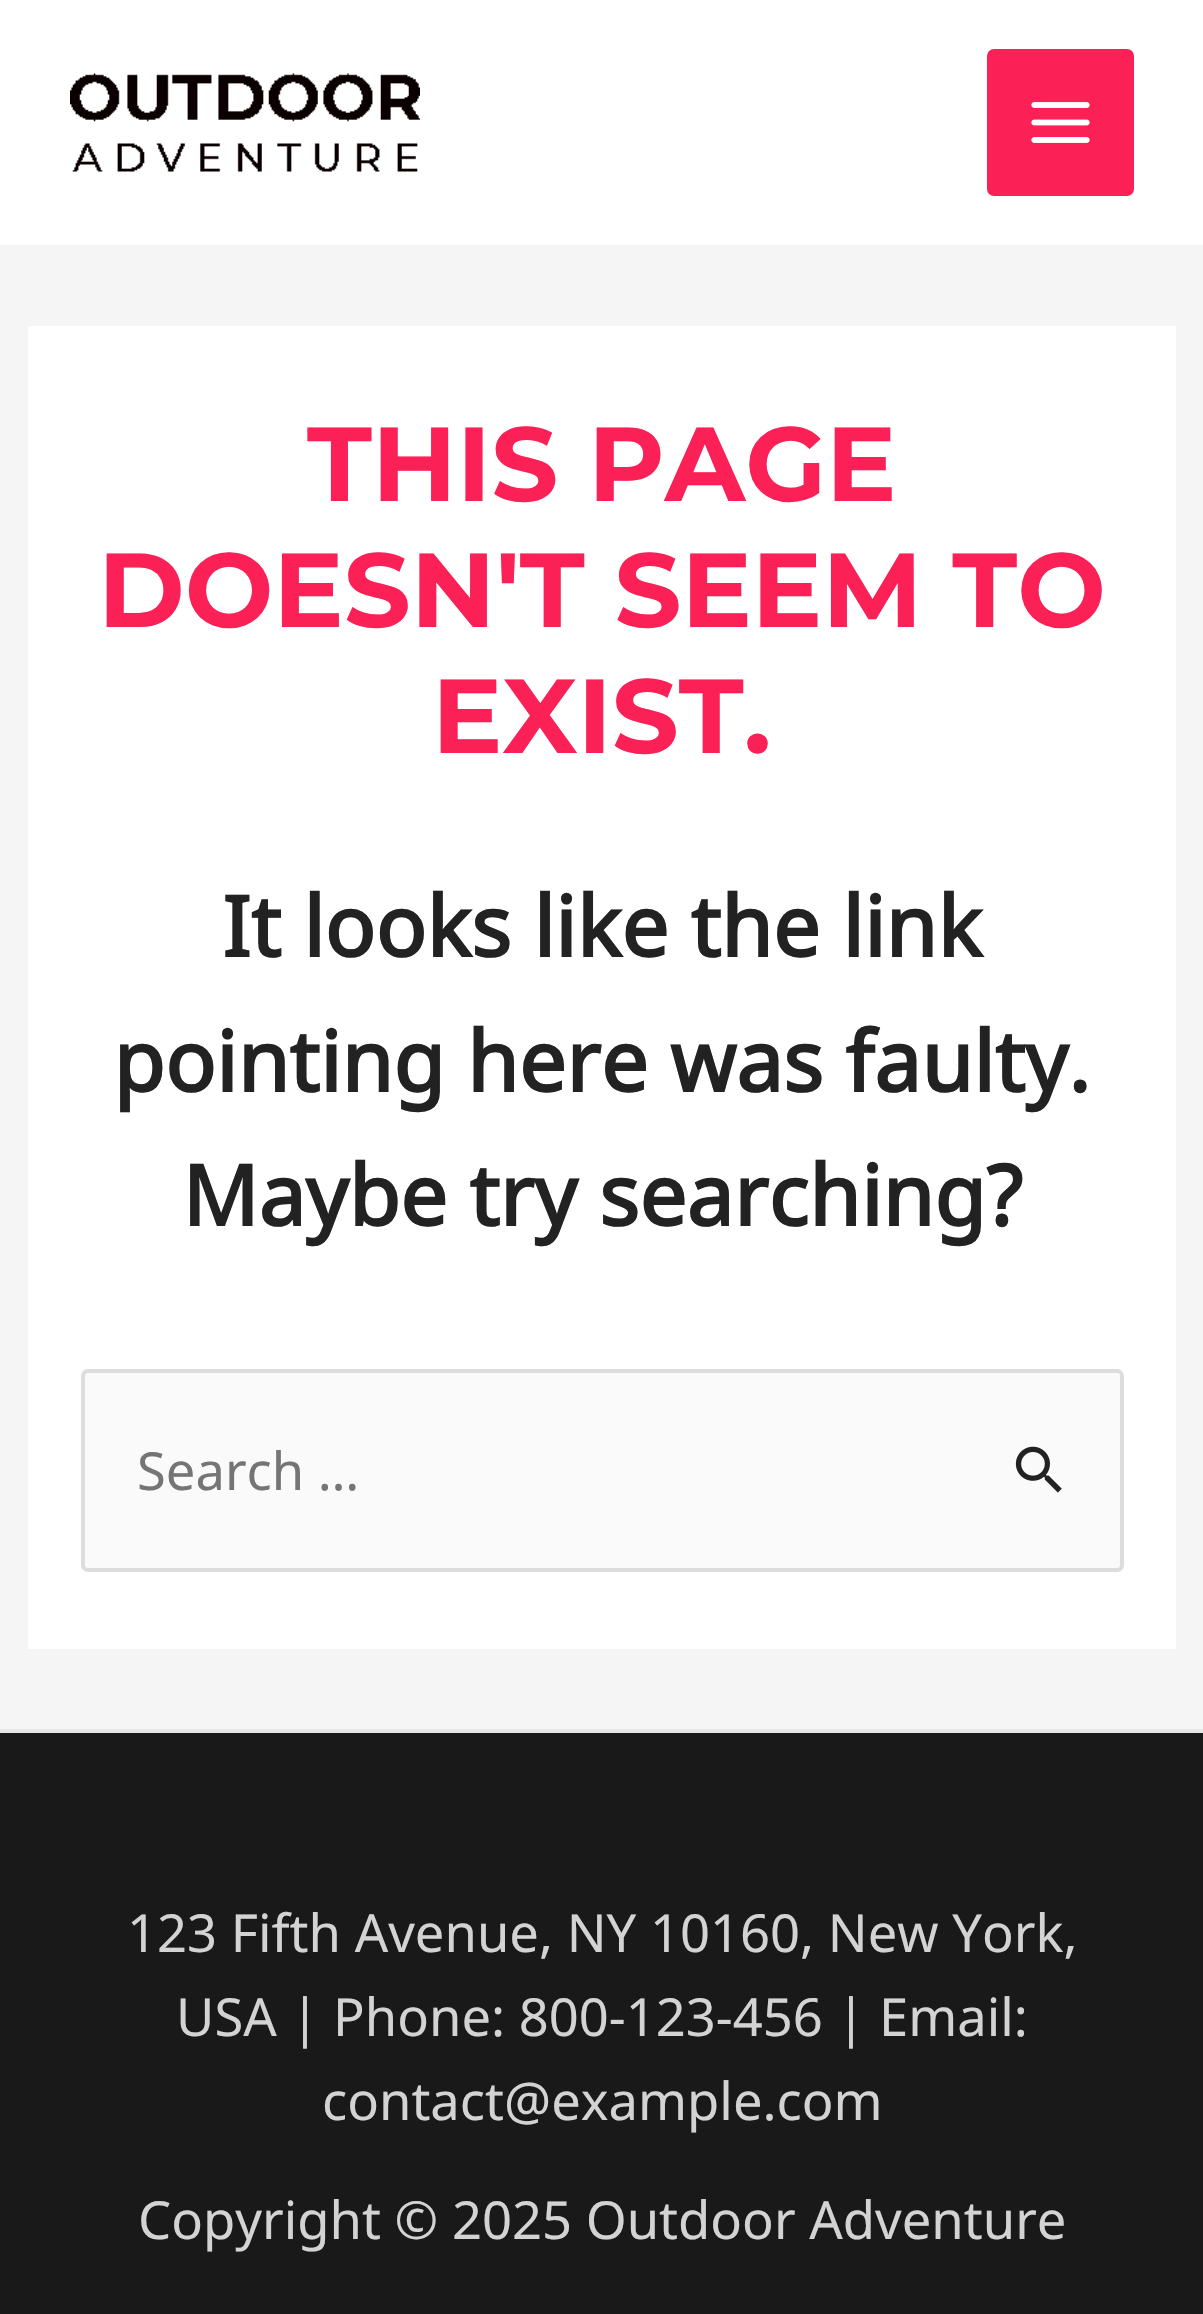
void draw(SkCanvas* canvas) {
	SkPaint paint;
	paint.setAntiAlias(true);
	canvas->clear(0xfff5f5f5);
	paint.setColor(0xffffffff);
	canvas->drawRect(SkRect::MakeXYWH(0, 0, 1203, 245), paint);
	canvas->drawImageRect(SkImages::DeferredFromEncodedData(SkData::MakeFromFileName("img1.png")), SkRect::MakeXYWH(70, 73, 350, 99), SkSamplingOptions());
	paint.setColor(0xfffb2056);
	canvas->drawRoundRect(SkRect::MakeXYWH(987, 49, 147, 147), 7, 7, paint);
	canvas->drawImageRect(SkImages::DeferredFromEncodedData(SkData::MakeFromFileName("img2.png")), SkRect::MakeXYWH(1031, 102, 59, 41), SkSamplingOptions());
	paint.setColor(0xffffffff);
	canvas->drawRect(SkRect::MakeXYWH(28, 326, 1148, 1323), paint);
	SkFont f1(fontMgr->matchFamilyStyle("Montserrat", SkFontStyle(100, SkFontStyle::kNormal_Width, SkFontStyle::kUpright_Slant)), 105);
	f1.setSubpixel(true);
	paint.setColor(0xfffb2056);
	canvas->drawString("THIS PAGE", 307, 501, f1, paint);
	canvas->drawString("DOESN'T SEEM TO", 98, 627, f1, paint);
	canvas->drawString("EXIST.", 432, 753, f1, paint);
	SkFont f2(fontMgr->matchFamilyStyle("Noto Sans", SkFontStyle::Bold()), 84);
	f2.setSubpixel(true);
	paint.setColor(0xff222222);
	canvas->drawString("It looks like the link", 222, 957, f2, paint);
	canvas->drawString("pointing here was faulty.", 113, 1092, f2, paint);
	canvas->drawString("Maybe try searching?", 182, 1226, f2, paint);
	paint.setColor(0xfffafafa);
	canvas->drawRoundRect(SkRect::MakeXYWH(83, 1371, 1039, 199), 5, 5, paint);
	paint.setStroke(true);
	paint.setStrokeWidth(4);
	paint.setColor(0xffdddddd);
	canvas->drawRoundRect(SkRect::MakeXYWH(83, 1371, 1039, 199), 5, 5, paint);
	SkFont f3(fontMgr->matchFamilyStyle("Noto Sans", SkFontStyle::Normal()), 52.5);
	f3.setSubpixel(true);
	paint.setStroke(false);
	paint.setColor(0xff757575);
	canvas->drawString("Search …", 137, 1490, f3, paint);
	canvas->drawImageRect(SkImages::DeferredFromEncodedData(SkData::MakeFromFileName("img3.png")), SkRect::MakeXYWH(1015, 1446, 47, 47), SkSamplingOptions());
	paint.setColor(0xff191919);
	canvas->drawRect(SkRect::MakeXYWH(0, 1733, 1203, 581), paint);
	paint.setColor(0xffe6e6e6);
	canvas->drawRect(SkRect::MakeXYWH(0, 1729, 1203, 4), paint);
	paint.setColor(0xffd3d3d3);
	canvas->drawString("123 Fifth Avenue, NY 10160, New York,", 127, 1952, f3, paint);
	canvas->drawString("USA | Phone: 800-123-456 | Email:", 176, 2036, f3, paint);
	canvas->drawString("contact@example.com", 322, 2120, f3, paint);
	canvas->drawString("Copyright © 2025 Outdoor Adventure", 138, 2239, f3, paint);
}
